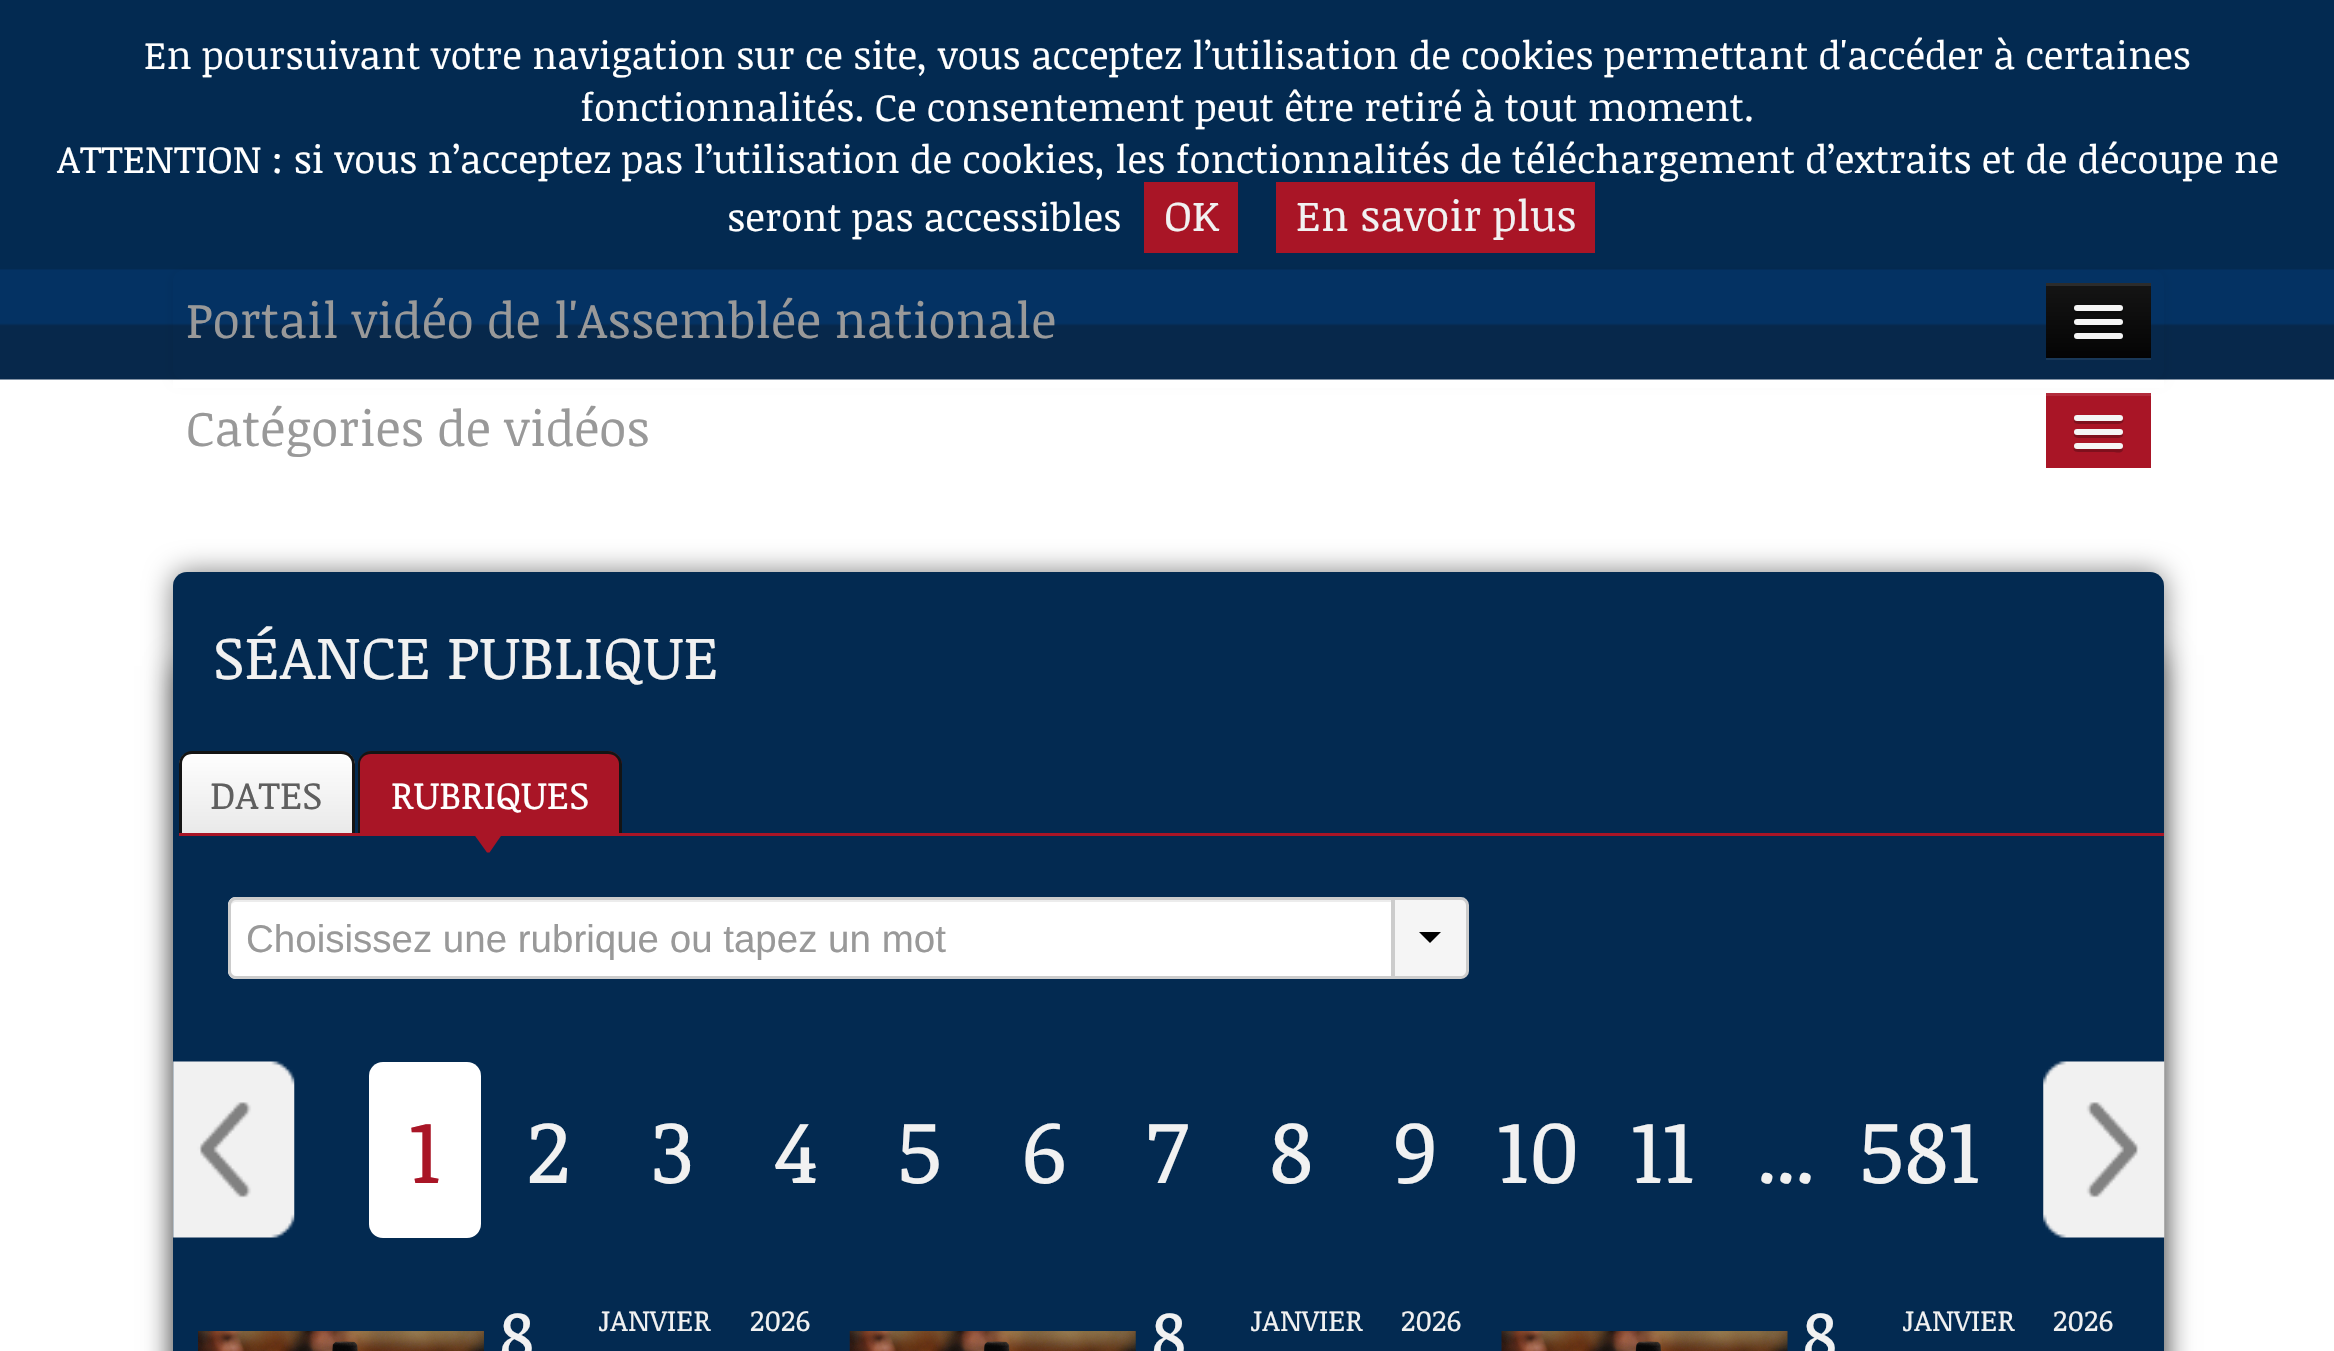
void draw(SkCanvas* canvas) {
	SkPaint paint;
	paint.setAntiAlias(true);
	auto svgPath = [&](const char* data, bool evenOdd = false) {
		SkPath result = *SkParsePath::FromSVGString(data);
		if (evenOdd) result.setFillType(SkPathFillType::kEvenOdd);
		return result;
	};
	canvas->clear(0xffffffff);
	paint.setColor(0xff032a51);
	canvas->drawRect(SkRect::MakeXYWH(0, 0, 2334, 270), paint);
	SkFont f1(fontMgr->matchFamilyStyle("Noticia Text", SkFontStyle::Normal()), 38.5);
	f1.setSubpixel(true);
	paint.setColor(0xffffffff);
	canvas->drawString("En poursuivant votre navigation sur ce site, vous acceptez l’utilisation de cookies permettant d'accéder à certaines", 144, 69, f1, paint);
	canvas->drawString("fonctionnalités. Ce consentement peut être retiré à tout moment.", 580, 121, f1, paint);
	canvas->drawString("ATTENTION : si vous n’acceptez pas l’utilisation de cookies, les fonctionnalités de téléchargement d’extraits et de découpe ne", 57, 173, f1, paint);
	canvas->drawString("seront pas accessibles", 727, 231, f1, paint);
	paint.setColor(0xffa91526);
	canvas->drawRect(SkRect::MakeXYWH(1144, 182, 94, 71), paint);
	SkFont f2(fontMgr->matchFamilyStyle("Noticia Text", SkFontStyle::Normal()), 42.5);
	f2.setSubpixel(true);
	paint.setColor(0xfff1f1f1);
	canvas->drawString("OK", 1164, 231, f2, paint);
	paint.setColor(0xffa91526);
	canvas->drawRect(SkRect::MakeXYWH(1276, 182, 319, 71), paint);
	paint.setColor(0xfff1f1f1);
	canvas->drawString("En savoir plus", 1296, 231, f2, paint);
	canvas->drawImageRect(SkImages::DeferredFromEncodedData(SkData::MakeFromFileName("img1.png")), SkRect::MakeXYWH(0, 269, 2334, 111), SkSamplingOptions());
	canvas->save();
	canvas->clipPath(svgPath("M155 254H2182V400H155ZM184 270H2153C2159 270 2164 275 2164 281V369C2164 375 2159 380 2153 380H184C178 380 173 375 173 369V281C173 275 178 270 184 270Z", true), true);
	paint.setColor(0x12000000);
	paint.setMaskFilter(SkMaskFilter::MakeBlur(kNormal_SkBlurStyle, 5.5));
	canvas->drawRoundRect(SkRect::MakeXYWH(173, 272, 1991, 110), 11, 11, paint);
	paint.setMaskFilter(nullptr);
	canvas->restore();
	SkFont f3(fontMgr->matchFamilyStyle("Noticia Text", SkFontStyle::Normal()), 49.5);
	f3.setSubpixel(true);
	paint.setColor(0xff999999);
	canvas->drawString("Portail vidéo de l'Assemblée nationale", 186, 338, f3, paint);
	paint.setColor(0x12ffffff);
	canvas->drawPath(svgPath("M2046 358V360H2151V286H2150V358Z"), paint);
	{
		const SkColor colors[] = {0xff151515, 0xff040404};
		const float stops[] = {0, 1};
		const SkPoint ends[] = {{2098, 283}, {2098, 358}};
		paint.setShader(SkGradientShader::MakeLinear(ends, colors, stops, 2, SkTileMode::kClamp));
		paint.setAlpha(255);
	}
	canvas->drawRect(SkRect::MakeXYWH(2046, 286, 105, 72), paint);
	paint.setShader(nullptr);
	paint.setColor(0xff2c2c2c);
	canvas->drawRect(SkRect::MakeXYWH(2046, 283, 105, 3), paint);
	paint.setColor(0xff0b0b0b);
	canvas->drawPath(svgPath("M2074 310C2072 315 2083 314 2084 314H2113C2114 314 2126 315 2123 309L2121 311H2076Z"), paint);
	paint.setColor(0xfff5f5f5);
	canvas->drawRoundRect(SkRect::MakeXYWH(2074, 305, 49, 6), 3, 3, paint);
	paint.setColor(0xff080808);
	canvas->drawPath(svgPath("M2074 324C2072 329 2083 328 2084 328H2113C2113 328 2127 329 2122 323L2121 324H2076Z"), paint);
	paint.setColor(0xfff5f5f5);
	canvas->drawRoundRect(SkRect::MakeXYWH(2074, 319, 49, 6), 3, 3, paint);
	canvas->drawRoundRect(SkRect::MakeXYWH(2074, 333, 49, 6), 3, 3, paint);
	paint.setColor(0xffffffff);
	canvas->drawRect(SkRect::MakeXYWH(173, 380, 1991, 8), paint);
	paint.setColor(0xff999999);
	canvas->drawString("Catégories de vidéos", 186, 446, f3, paint);
	paint.setColor(0xffa91526);
	canvas->drawRect(SkRect::MakeXYWH(2046, 396, 105, 72), paint);
	paint.setColor(0xffb22c3c);
	canvas->drawRect(SkRect::MakeXYWH(2046, 393, 105, 3), paint);
	paint.setColor(0xff7f101d);
	canvas->drawPath(svgPath("M2074 420C2072 425 2083 424 2084 424H2113C2114 424 2126 425 2123 419L2121 421H2076Z"), paint);
	paint.setColor(0xfff5f5f5);
	canvas->drawRoundRect(SkRect::MakeXYWH(2074, 415, 49, 6), 3, 3, paint);
	paint.setColor(0xff7f101d);
	canvas->drawPath(svgPath("M2074 434C2072 439 2083 438 2084 438H2113C2113 438 2127 439 2122 433L2121 434H2076Z"), paint);
	paint.setColor(0xfff5f5f5);
	canvas->drawRoundRect(SkRect::MakeXYWH(2074, 429, 49, 6), 3, 3, paint);
	paint.setColor(0xff7f101d);
	canvas->drawPath(svgPath("M2074 448C2071 453 2083 452 2084 452H2113C2115 452 2122 454 2123 450L2122 447L2121 448C2116 449 2076 449 2074 448Z"), paint);
	paint.setColor(0xfff5f5f5);
	canvas->drawRoundRect(SkRect::MakeXYWH(2074, 443, 49, 6), 3, 3, paint);
	paint.setColor(0x80000000);
	paint.setMaskFilter(SkMaskFilter::MakeBlur(kNormal_SkBlurStyle, 14));
	canvas->drawRoundRect(SkRect::MakeXYWH(173, 572, 1991, 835), 14, 14, paint);
	paint.setMaskFilter(nullptr);
	paint.setMaskFilter(SkMaskFilter::MakeBlur(kNormal_SkBlurStyle, 14));
	canvas->drawRect(SkRect::MakeXYWH(176, 666, 138, 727), paint);
	paint.setMaskFilter(nullptr);
	paint.setMaskFilter(SkMaskFilter::MakeBlur(kNormal_SkBlurStyle, 14));
	canvas->drawRect(SkRect::MakeXYWH(2024, 655, 138, 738), paint);
	paint.setMaskFilter(nullptr);
	paint.setColor(0xff032a51);
	canvas->drawRoundRect(SkRect::MakeXYWH(173, 572, 1991, 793), 14, 14, paint);
	SkFont f4(fontMgr->matchFamilyStyle("Noticia Text", SkFontStyle::Normal()), 60.5);
	f4.setSubpixel(true);
	paint.setColor(0xfff1f1f1);
	canvas->drawString("SÉANCE PUBLIQUE", 213, 679, f4, paint);
	paint.setColor(0xffa91526);
	canvas->drawRect(SkRect::MakeXYWH(179, 833, 1985, 3), paint);
	canvas->save();
	canvas->clipPath(svgPath("M193 751H341C348.5 751 355 757.5 355 765V833H179V765C179 757.5 185.5 751 193 751Z"), true);
	{
		const SkColor colors[] = {0xfffefefe, 0xffe9e9e9};
		const float stops[] = {0, 1};
		const SkPoint ends[] = {{267, 754}, {267, 833}};
		paint.setShader(SkGradientShader::MakeLinear(ends, colors, stops, 2, SkTileMode::kClamp));
		paint.setAlpha(255);
	}
	canvas->drawRect(SkRect::MakeXYWH(179, 754, 176, 79), paint);
	canvas->restore();
	paint.setShader(nullptr);
	paint.setColor(0xff141414);
	canvas->drawPath(svgPath("M192 751H341C349 751 355 757 355 764V833H179V764C179 757 185 751 192 751ZM192 754H341C347 754 352 758 352 764V833H182V764C182 758 186 754 192 754Z", true), paint);
	paint.setColor(0xff5f5f5f);
	canvas->drawString("DATES", 210, 809, f1, paint);
	paint.setColor(0xffa91526);
	canvas->drawPath(svgPath("M372 751H608C615.5 751 622 757.5 622 765V833H358V765C358 757.5 364.5 751 372 751Z"), paint);
	paint.setColor(0xff141414);
	canvas->drawPath(svgPath("M371 751H608C615 751 622 757 622 764V833H358V764C358 757 364 751 371 751ZM371 754H608C614 754 619 758 619 764V833H360V764C360 758 365 754 371 754Z", true), paint);
	paint.setColor(0xffffffff);
	canvas->drawString("RUBRIQUES", 391, 809, f1, paint);
	paint.setColor(0xffa91526);
	canvas->drawPath(svgPath("M473 833H503L489.5 852.5H487Z"), paint);
	paint.setColor(0xffffffff);
	canvas->drawPath(svgPath("M236 897H1394V979H236C231.5 979 228 975.5 228 971V905C228 900.5 231.5 897 236 897Z"), paint);
	paint.setColor(0xffececec);
	canvas->drawPath(svgPath("M236 902H1392V899H237C232 899 231 904 231 908C231 904 233 902 236 902Z"), paint);
	paint.setStroke(true);
	paint.setStrokeWidth(3);
	paint.setColor(0xffcccccc);
	canvas->drawPath(svgPath("M236 898.5H1392.5V977.5H236C232.5 977.5 229.5 974.5 229.5 971V905C229.5 901.5 232.5 898.5 236 898.5Z"), paint);
	SkFont f5(fontMgr->matchFamilyStyle("Liberation Sans", SkFontStyle::Normal()), 38.5);
	f5.setSubpixel(true);
	paint.setStroke(false);
	paint.setColor(0xff999999);
	canvas->drawString("Choisissez une rubrique ou tapez un mot", 246, 952, f5, paint);
	paint.setColor(0xfff5f5f5);
	canvas->drawPath(svgPath("M1393.5 898.5H1461C1464.5 898.5 1467.5 901.5 1467.5 905V971C1467.5 974.5 1464.5 977.5 1461 977.5H1393.5Z"), paint);
	paint.setStroke(true);
	paint.setColor(0xffcccccc);
	canvas->drawPath(svgPath("M1393.5 898.5H1461C1464.5 898.5 1467.5 901.5 1467.5 905V971C1467.5 974.5 1464.5 977.5 1461 977.5H1393.5Z"), paint);
	paint.setStroke(false);
	paint.setColor(0xff000000);
	canvas->drawPath(svgPath("M1419 932H1441L1430 943Z"), paint);
	canvas->drawImageRect(SkImages::DeferredFromEncodedData(SkData::MakeFromFileName("img2.png")), SkRect::MakeXYWH(173, 1061, 122, 177), SkSamplingOptions());
	paint.setColor(0xffffffff);
	canvas->drawRoundRect(SkRect::MakeXYWH(369, 1062, 112, 176), 14, 14, paint);
	SkFont f6(fontMgr->matchFamilyStyle("Noticia Text", SkFontStyle::Normal()), 89);
	f6.setSubpixel(true);
	paint.setColor(0xffa91526);
	canvas->drawString("1", 409, 1183, f6, paint);
	paint.setColor(0xfff1f1f1);
	canvas->drawString("2", 527, 1183, f6, paint);
	canvas->drawString("3", 651, 1183, f6, paint);
	canvas->drawString("4", 774, 1183, f6, paint);
	canvas->drawString("5", 897, 1183, f6, paint);
	canvas->drawString("6", 1021, 1183, f6, paint);
	canvas->drawString("7", 1147, 1183, f6, paint);
	canvas->drawString("8", 1269, 1183, f6, paint);
	canvas->drawString("9", 1392, 1183, f6, paint);
	canvas->drawString("10", 1497, 1183, f6, paint);
	canvas->drawString("11", 1631, 1183, f6, paint);
	SkFont f7(fontMgr->matchFamilyStyle("Noticia Text", SkFontStyle::Bold()), 69);
	f7.setSubpixel(true);
	canvas->drawString("...", 1758, 1183, f7, paint);
	canvas->drawString("581", 1859, 1183, f6, paint);
	canvas->drawImageRect(SkImages::DeferredFromEncodedData(SkData::MakeFromFileName("img3.png")), SkRect::MakeXYWH(2043, 1061, 122, 177), SkSamplingOptions());
	canvas->drawImageRect(SkImages::DeferredFromEncodedData(SkData::MakeFromFileName("img4.png")), SkRect::MakeXYWH(198, 1331, 286, 20), SkSamplingOptions());
	SkFont f8(fontMgr->matchFamilyStyle("Noticia Text", SkFontStyle::Normal()), 71);
	f8.setSubpixel(true);
	canvas->drawString("8", 499, 1361, f8, paint);
	SkFont f9(fontMgr->matchFamilyStyle("Noticia Text", SkFontStyle::Normal()), 29.5);
	f9.setSubpixel(true);
	canvas->drawString("JANVIER", 598, 1331, f9, paint);
	canvas->drawString("2026", 750, 1331, f9, paint);
	canvas->drawImageRect(SkImages::DeferredFromEncodedData(SkData::MakeFromFileName("img5.png")), SkRect::MakeXYWH(849, 1331, 287, 20), SkSamplingOptions());
	canvas->drawString("8", 1151, 1361, f8, paint);
	canvas->drawString("JANVIER", 1250, 1331, f9, paint);
	canvas->drawString("2026", 1401, 1331, f9, paint);
	canvas->drawImageRect(SkImages::DeferredFromEncodedData(SkData::MakeFromFileName("img6.png")), SkRect::MakeXYWH(1501, 1331, 287, 20), SkSamplingOptions());
	canvas->drawString("8", 1802, 1361, f8, paint);
	canvas->drawString("JANVIER", 1902, 1331, f9, paint);
	canvas->drawString("2026", 2053, 1331, f9, paint);
}
